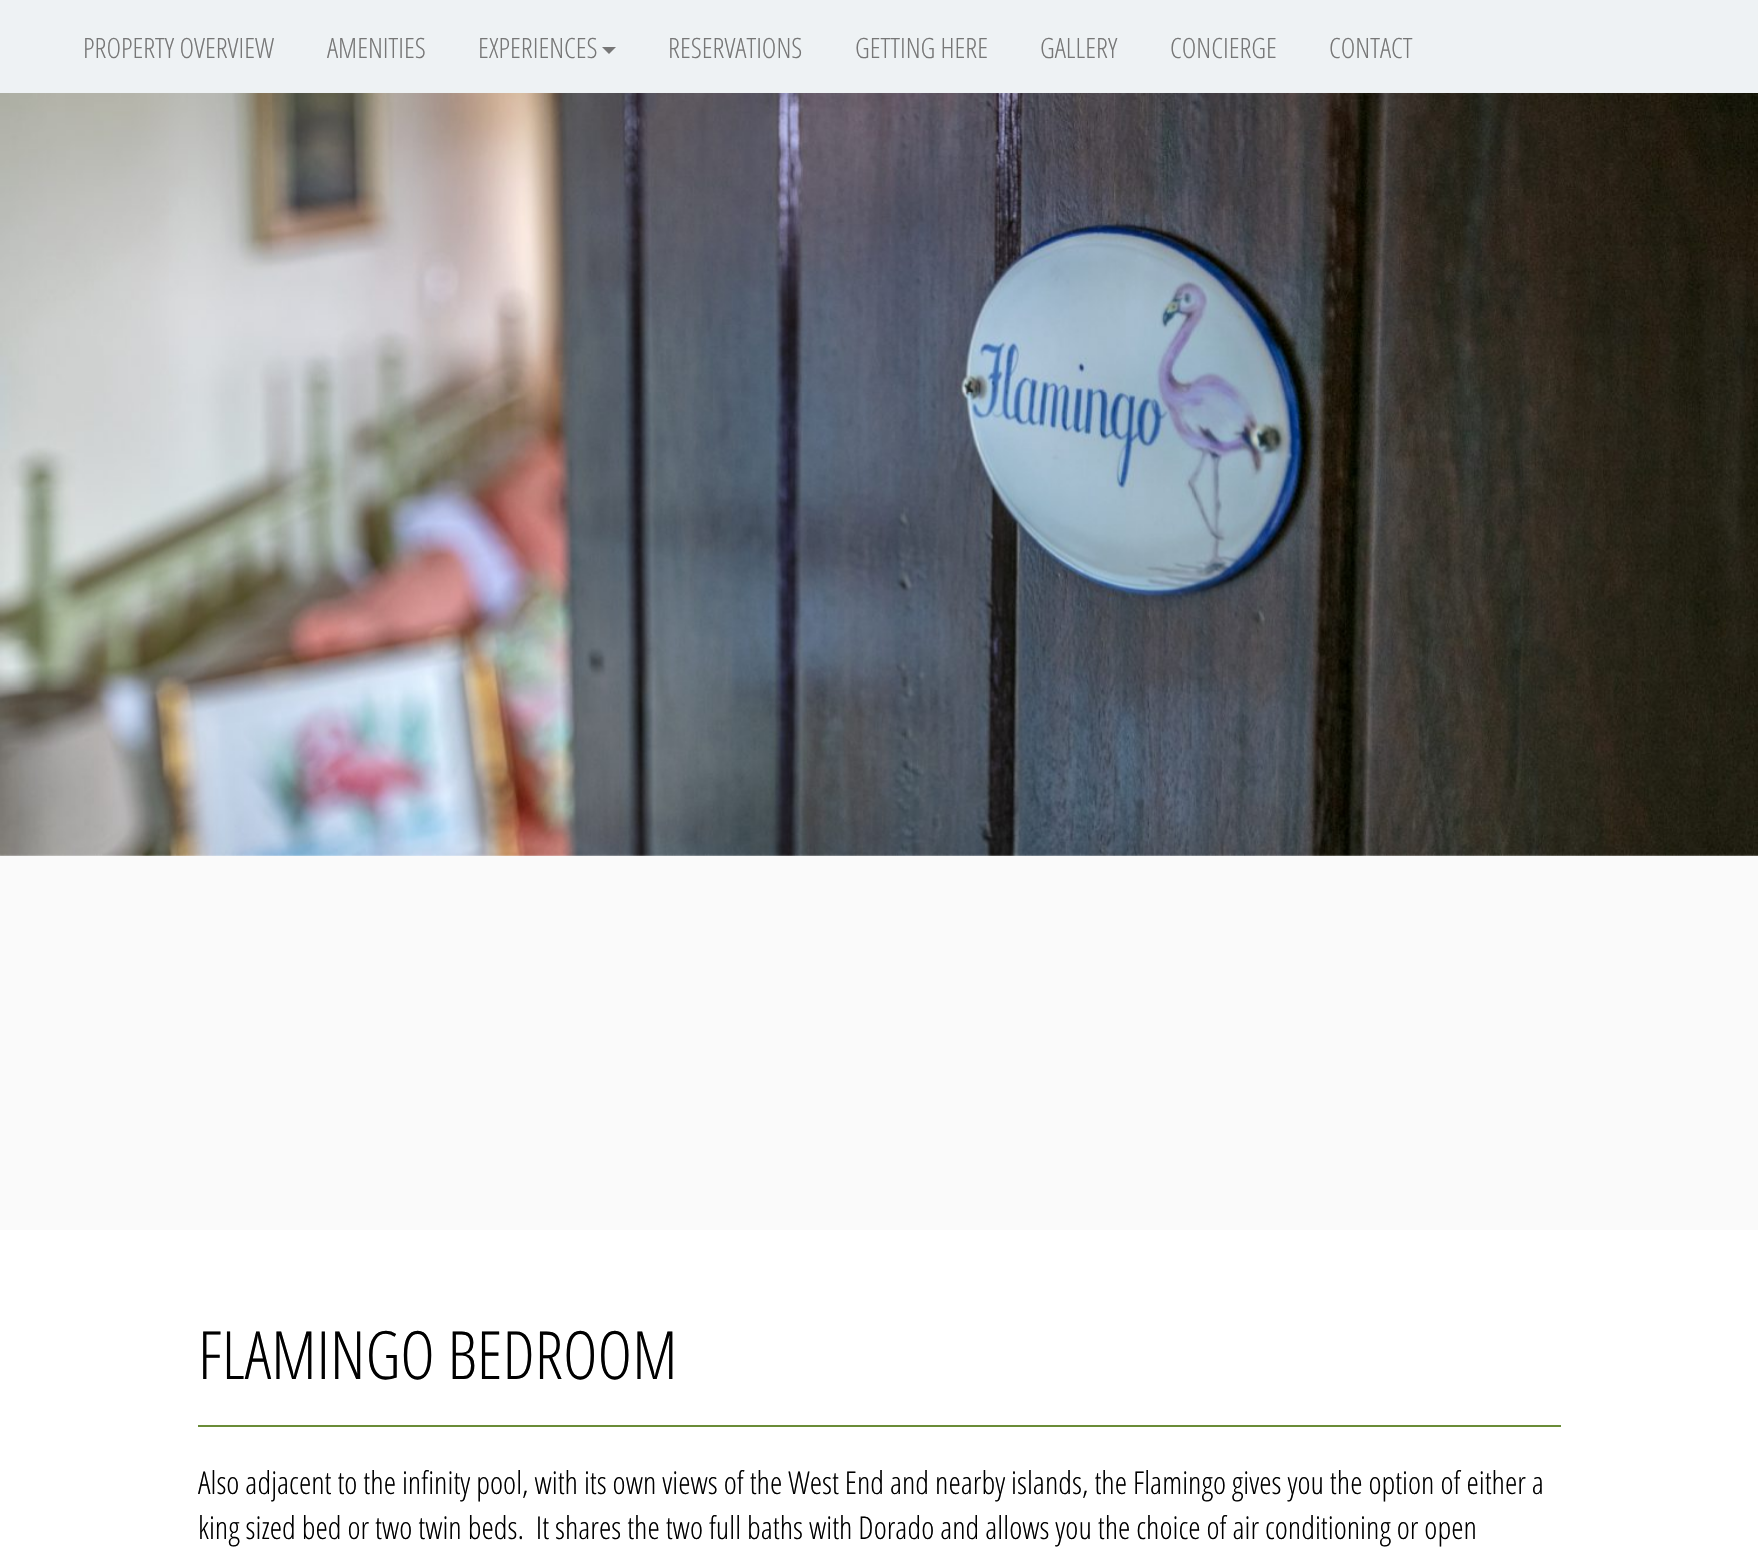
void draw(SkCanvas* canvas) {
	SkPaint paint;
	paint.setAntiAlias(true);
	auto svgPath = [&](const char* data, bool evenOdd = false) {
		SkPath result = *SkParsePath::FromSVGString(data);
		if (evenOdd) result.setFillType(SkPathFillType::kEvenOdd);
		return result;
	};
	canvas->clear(0xffffffff);
	paint.setColor(0xffeef2f4);
	canvas->drawRect(SkRect::MakeXYWH(0, 0, 1758, 93), paint);
	SkFont f1(fontMgr->matchFamilyStyle("Open Sans Condensed", SkFontStyle(300, SkFontStyle::kNormal_Width, SkFontStyle::kUpright_Slant)), 28);
	f1.setSubpixel(true);
	paint.setColor(0xff777777);
	canvas->drawString("PROPERTY OVERVIEW", 83, 58, f1, paint);
	canvas->drawString("AMENITIES", 327, 58, f1, paint);
	canvas->drawString("EXPERIENCES", 478, 58, f1, paint);
	canvas->drawPath(svgPath("M602 47H616L609 54Z"), paint);
	canvas->drawString("RESERVATIONS", 668, 58, f1, paint);
	canvas->drawString("GETTING HERE", 855, 58, f1, paint);
	canvas->drawString("GALLERY", 1040, 58, f1, paint);
	canvas->drawString("CONCIERGE", 1170, 58, f1, paint);
	canvas->drawString("CONTACT", 1329, 58, f1, paint);
	paint.setColor(0xfffafafa);
	canvas->drawRect(SkRect::MakeXYWH(0, 854, 1758, 376), paint);
	canvas->drawImageRect(SkImages::DeferredFromEncodedData(SkData::MakeFromFileName("img1.png")), SkRect::MakeXYWH(0, 93, 1758, 763), SkSamplingOptions());
	paint.setColor(0xff6a8c38);
	canvas->drawRect(SkRect::MakeXYWH(198, 1425, 1363, 2), paint);
	SkFont f2(fontMgr->matchFamilyStyle("Open Sans Condensed", SkFontStyle(300, SkFontStyle::kNormal_Width, SkFontStyle::kUpright_Slant)), 66.5);
	f2.setSubpixel(true);
	paint.setColor(0xff000000);
	canvas->drawString("FLAMINGO BEDROOM", 198, 1379, f2, paint);
	SkFont f3(fontMgr->matchFamilyStyle("Open Sans Condensed", SkFontStyle(300, SkFontStyle::kNormal_Width, SkFontStyle::kUpright_Slant)), 31.5);
	f3.setSubpixel(true);
	canvas->drawString("Also adjacent to the infinity pool, with its own views of the West End and nearby islands, the Flamingo gives you the option of either a", 198, 1494, f3, paint);
	canvas->drawString("king sized bed or two twin beds.  It shares the two full baths with Dorado and allows you the choice of air conditioning or open", 198, 1539, f3, paint);
}
